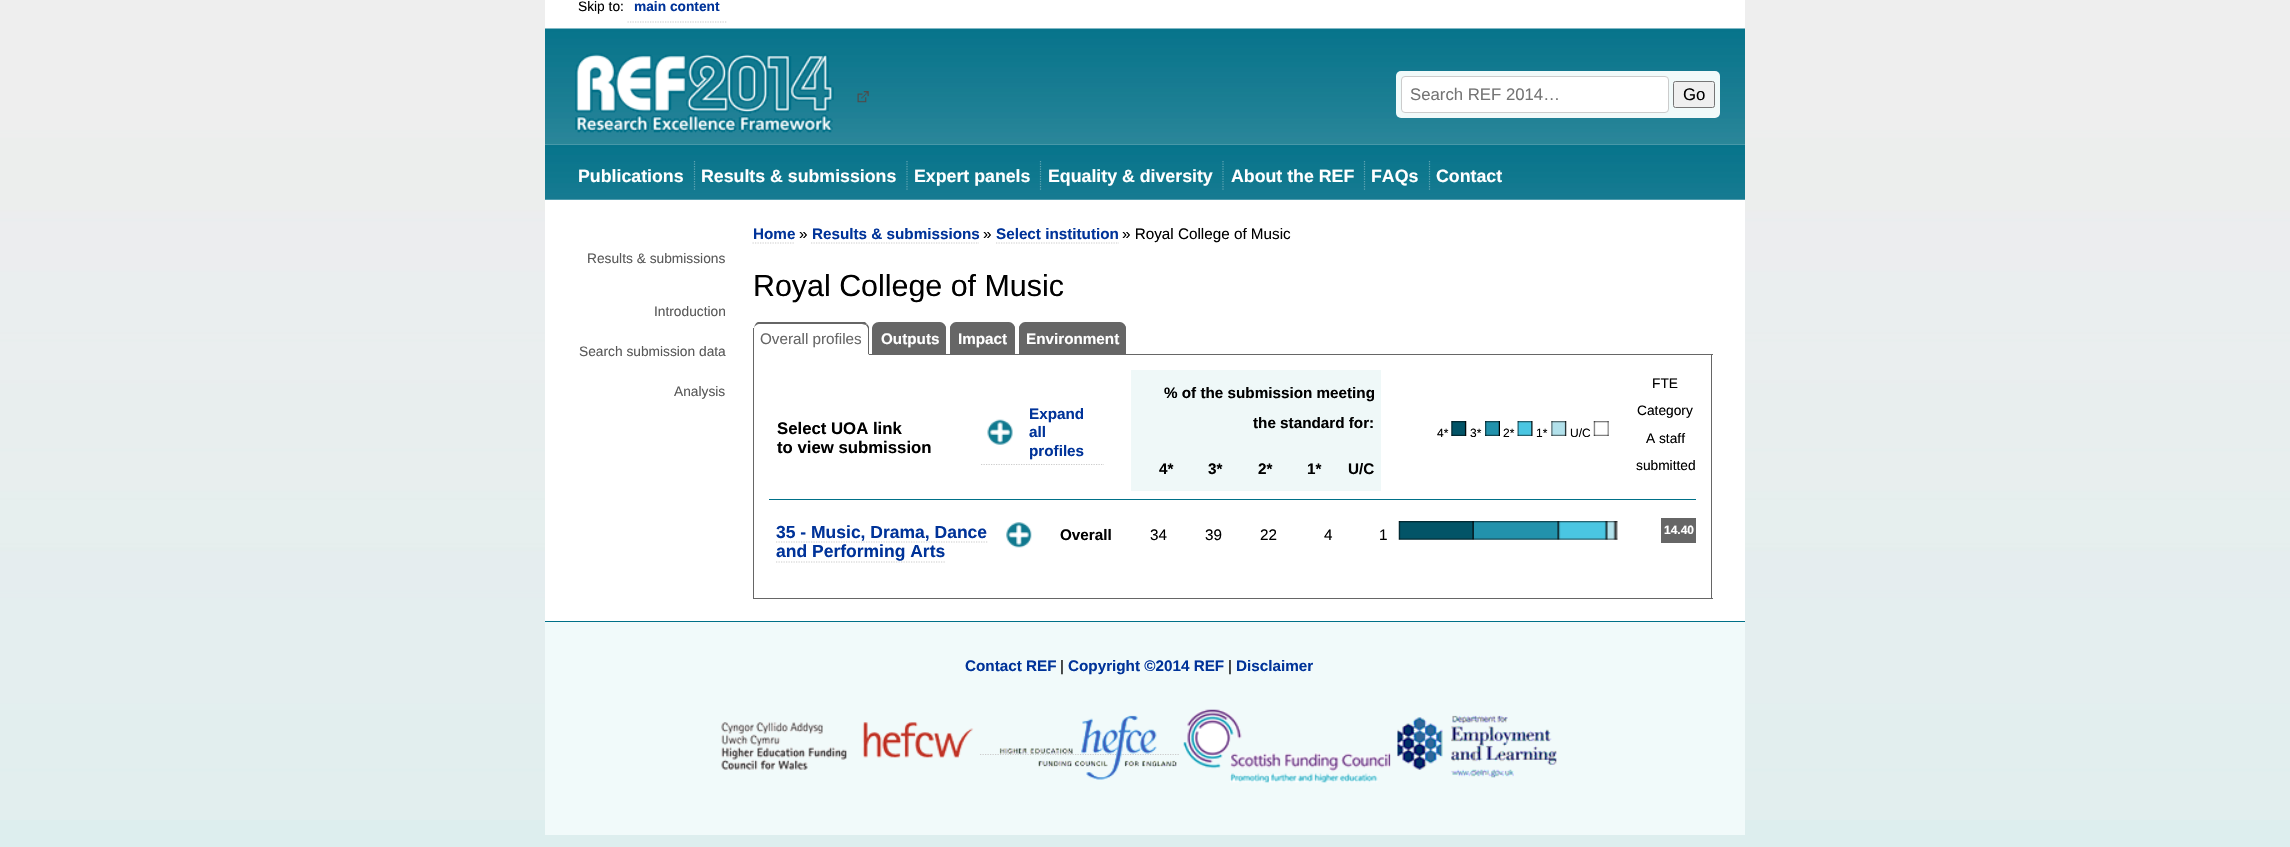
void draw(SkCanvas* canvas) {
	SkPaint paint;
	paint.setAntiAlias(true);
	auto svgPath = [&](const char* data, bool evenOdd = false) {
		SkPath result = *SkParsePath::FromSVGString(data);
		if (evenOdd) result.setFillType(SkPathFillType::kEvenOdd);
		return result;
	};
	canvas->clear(0xffddeeee);
	canvas->drawImageRect(SkImages::DeferredFromEncodedData(SkData::MakeFromFileName("img1.png")), SkRect::MakeXYWH(0, 0, 2290, 820), SkSamplingOptions());
	paint.setColor(0xffffffff);
	canvas->drawRect(SkRect::MakeXYWH(545, 0, 1200, 621), paint);
	SkFont f1(fontMgr->matchFamilyStyle("Liberation Sans", SkFontStyle::Normal()), 13.75);
	f1.setSubpixel(true);
	paint.setColor(0xff000000);
	canvas->drawString("Skip to:", 578, 11, f1, paint);
	SkFont f2(fontMgr->matchFamilyStyle("Liberation Sans", SkFontStyle::Bold()), 13.75);
	f2.setSubpixel(true);
	paint.setColor(0xff003399);
	canvas->drawString("main content", 634, 11, f2, paint);
	paint.setStroke(true);
	paint.setStrokeWidth(1.2);
	paint.setColor(0xffcccccc);
	paint.setPathEffect(SkDashPathEffect::Make({{1.25f, 1.25f}}, 0));
	canvas->drawPath(svgPath("M627.5 22H727.5"), paint);
	paint.setPathEffect(nullptr);
	canvas->drawImageRect(SkImages::DeferredFromEncodedData(SkData::MakeFromFileName("img2.png")), SkRect::MakeXYWH(545, 28, 1200, 117), SkSamplingOptions());
	canvas->drawImageRect(SkImages::DeferredFromEncodedData(SkData::MakeFromFileName("img3.png")), SkRect::MakeXYWH(857, 91, 12, 12), SkSamplingOptions());
	canvas->drawImageRect(SkImages::DeferredFromEncodedData(SkData::MakeFromFileName("img4.png")), SkRect::MakeXYWH(575, 53, 259, 80), SkSamplingOptions());
	paint.setStroke(false);
	paint.setColor(0xfff1fafa);
	canvas->drawRoundRect(SkRect::MakeXYWH(1396, 71, 324, 47), 5, 5, paint);
	paint.setColor(0xffffffff);
	canvas->drawRoundRect(SkRect::MakeXYWH(1401.5, 76.5, 267, 36), 3.5, 3.5, paint);
	paint.setStroke(true);
	paint.setStrokeWidth(1);
	paint.setColor(0xffcccccc);
	canvas->drawRoundRect(SkRect::MakeXYWH(1401.5, 76.5, 267, 36), 3.5, 3.5, paint);
	SkFont f3(fontMgr->matchFamilyStyle("Liberation Sans", SkFontStyle::Normal()), 16.75);
	f3.setSubpixel(true);
	paint.setStroke(false);
	paint.setColor(0xff757575);
	canvas->drawString("Search REF 2014…", 1410, 100, f3, paint);
	paint.setColor(0xffefefef);
	canvas->drawRoundRect(SkRect::MakeXYWH(1673.5, 81.5, 41, 26), 2, 2, paint);
	paint.setStroke(true);
	paint.setColor(0xff767676);
	canvas->drawRoundRect(SkRect::MakeXYWH(1673.5, 81.5, 41, 26), 2, 2, paint);
	paint.setStroke(false);
	paint.setColor(0xff000000);
	canvas->drawString("Go", 1683, 100, f3, paint);
	canvas->drawImageRect(SkImages::DeferredFromEncodedData(SkData::MakeFromFileName("img5.png")), SkRect::MakeXYWH(545, 144, 1200, 56), SkSamplingOptions());
	SkFont f4(fontMgr->matchFamilyStyle("Liberation Sans", SkFontStyle::Bold()), 17.75);
	f4.setSubpixel(true);
	paint.setColor(0xffffffff);
	canvas->drawString("Publications", 578, 182, f4, paint);
	canvas->drawString("Results & submissions", 701, 182, f4, paint);
	paint.setStroke(true);
	paint.setStrokeWidth(1.2);
	paint.setColor(0xff60a5b3);
	paint.setPathEffect(SkDashPathEffect::Make({{1.25f, 1.25f}}, 0));
	canvas->drawPath(svgPath("M694.5 161V191"), paint);
	paint.setPathEffect(nullptr);
	paint.setStroke(false);
	paint.setColor(0xffffffff);
	canvas->drawString("Expert panels", 914, 182, f4, paint);
	paint.setStroke(true);
	paint.setColor(0xff60a5b3);
	paint.setPathEffect(SkDashPathEffect::Make({{1.25f, 1.25f}}, 0));
	canvas->drawPath(svgPath("M907 161V191"), paint);
	paint.setPathEffect(nullptr);
	paint.setStroke(false);
	paint.setColor(0xffffffff);
	canvas->drawString("Equality & diversity", 1048, 182, f4, paint);
	paint.setStroke(true);
	paint.setColor(0xff60a5b3);
	paint.setPathEffect(SkDashPathEffect::Make({{1.25f, 1.25f}}, 0));
	canvas->drawPath(svgPath("M1040.5 161V191"), paint);
	paint.setPathEffect(nullptr);
	paint.setStroke(false);
	paint.setColor(0xffffffff);
	canvas->drawString("About the REF", 1231, 182, f4, paint);
	paint.setStroke(true);
	paint.setColor(0xff60a5b3);
	paint.setPathEffect(SkDashPathEffect::Make({{1.25f, 1.25f}}, 0));
	canvas->drawPath(svgPath("M1223 161V191"), paint);
	paint.setPathEffect(nullptr);
	paint.setStroke(false);
	paint.setColor(0xffffffff);
	canvas->drawString("FAQs", 1371, 182, f4, paint);
	paint.setStroke(true);
	paint.setColor(0xff60a5b3);
	paint.setPathEffect(SkDashPathEffect::Make({{1.25f, 1.25f}}, 0));
	canvas->drawPath(svgPath("M1364.5 161V191"), paint);
	paint.setPathEffect(nullptr);
	paint.setStroke(false);
	paint.setColor(0xffffffff);
	canvas->drawString("Contact", 1436, 182, f4, paint);
	paint.setStroke(true);
	paint.setColor(0xff60a5b3);
	paint.setPathEffect(SkDashPathEffect::Make({{1.25f, 1.25f}}, 0));
	canvas->drawPath(svgPath("M1429.5 161V191"), paint);
	paint.setPathEffect(nullptr);
	paint.setStroke(false);
	paint.setColor(0xff595959);
	canvas->drawString("Results & submissions", 587, 263, f1, paint);
	canvas->drawString("Introduction", 654, 316, f1, paint);
	canvas->drawString("Search submission data", 579, 356, f1, paint);
	canvas->drawString("Analysis", 674, 396, f1, paint);
	SkFont f5(fontMgr->matchFamilyStyle("Liberation Sans", SkFontStyle::Bold()), 15.25);
	f5.setSubpixel(true);
	paint.setColor(0xff003399);
	canvas->drawString("Home", 753, 239, f5, paint);
	paint.setStroke(true);
	paint.setColor(0xffcccccc);
	paint.setPathEffect(SkDashPathEffect::Make({{1.25f, 1.25f}}, 0));
	canvas->drawPath(svgPath("M752.5 243H795"), paint);
	paint.setPathEffect(nullptr);
	SkFont f6(fontMgr->matchFamilyStyle("Liberation Sans", SkFontStyle::Normal()), 15.25);
	f6.setSubpixel(true);
	paint.setStroke(false);
	paint.setColor(0xff000000);
	canvas->drawString("»", 799, 239, f6, paint);
	paint.setColor(0xff003399);
	canvas->drawString("Results & submissions", 812, 239, f5, paint);
	paint.setStroke(true);
	paint.setColor(0xffcccccc);
	paint.setPathEffect(SkDashPathEffect::Make({{1.25f, 1.25f}}, 0));
	canvas->drawPath(svgPath("M811 243H979"), paint);
	paint.setPathEffect(nullptr);
	paint.setStroke(false);
	paint.setColor(0xff000000);
	canvas->drawString("»", 983, 239, f6, paint);
	paint.setColor(0xff003399);
	canvas->drawString("Select institution", 996, 239, f5, paint);
	paint.setStroke(true);
	paint.setColor(0xffcccccc);
	paint.setPathEffect(SkDashPathEffect::Make({{1.25f, 1.25f}}, 0));
	canvas->drawPath(svgPath("M996 243H1119"), paint);
	paint.setPathEffect(nullptr);
	paint.setStroke(false);
	paint.setColor(0xff000000);
	canvas->drawString("» Royal College of Music", 1122, 239, f6, paint);
	SkFont f7(fontMgr->matchFamilyStyle("Liberation Sans", SkFontStyle::Normal()), 30.4);
	f7.setSubpixel(true);
	canvas->drawString("Royal College of Music", 753, 296, f7, paint);
	paint.setColor(0xff666666);
	canvas->drawRect(SkRect::MakeXYWH(869, 354, 844, 1), paint);
	canvas->drawRect(SkRect::MakeXYWH(753, 328, 1, 27), paint);
	canvas->drawString("Overall profiles", 760, 344, f6, paint);
	canvas->drawPath(svgPath("M760 324C757 324 754 326 754 329C754 327 755 323 758 322H865L867 324L866 325L862 324Z"), paint);
	canvas->drawPath(svgPath("M868 354V329C868 327.5 867 326 866 325.5L867 324C868 325 868.5 326 869 327V355Z"), paint);
	paint.setColor(0xffffffff);
	canvas->drawPath(svgPath("M869 355L868 354H754V355Z"), paint);
	paint.setColor(0xff666666);
	canvas->drawPath(svgPath("M879 323H940C943.5 323 946 325.5 946 329V354H873V329C873 325.5 875.5 323 879 323Z"), paint);
	canvas->drawPath(svgPath("M879 322H940C943 322 946 325 946 329V354H872V329C872 325 875 322 879 322ZM879 324H940C943 324 945 326 945 329V354H874V329C874 326 876 324 879 324Z", true), paint);
	paint.setColor(0xffffffff);
	canvas->drawString("Outputs", 881, 344, f5, paint);
	paint.setColor(0xff666666);
	canvas->drawPath(svgPath("M956 323H1009C1012.5 323 1015 325.5 1015 329V354H950V329C950 325.5 952.5 323 956 323Z"), paint);
	canvas->drawPath(svgPath("M956 322H1009C1012 322 1015 325 1015 329V354H950V329C950 325 953 322 956 322ZM956 324H1009C1012 324 1014 326 1014 329V354H951V329C951 326 953 324 956 324Z", true), paint);
	paint.setColor(0xffffffff);
	canvas->drawString("Impact", 958, 344, f5, paint);
	paint.setColor(0xff666666);
	canvas->drawPath(svgPath("M1025 323H1120C1123.5 323 1126 325.5 1126 329V354H1019V329C1019 325.5 1021.5 323 1025 323Z"), paint);
	canvas->drawPath(svgPath("M1025 322H1120C1123 322 1126 325 1126 329V354H1019V329C1019 325 1022 322 1025 322ZM1025 324H1120C1123 324 1125 326 1125 329V354H1020V329C1020 326 1022 324 1025 324Z", true), paint);
	paint.setColor(0xffffffff);
	canvas->drawString("Environment", 1026, 344, f5, paint);
	paint.setColor(0xff666666);
	canvas->drawRect(SkRect::MakeXYWH(1711, 355, 1, 244), paint);
	canvas->drawRect(SkRect::MakeXYWH(753, 598, 960, 1), paint);
	canvas->drawRect(SkRect::MakeXYWH(753, 355, 1, 244), paint);
	SkFont f8(fontMgr->matchFamilyStyle("Liberation Sans", SkFontStyle::Bold()), 16.75);
	f8.setSubpixel(true);
	paint.setColor(0xff000000);
	canvas->drawString("Select UOA link", 777, 434, f8, paint);
	canvas->drawString("to view submission", 777, 453, f8, paint);
	canvas->drawImageRect(SkImages::DeferredFromEncodedData(SkData::MakeFromFileName("img6.png")), SkRect::MakeXYWH(987, 419, 26, 26), SkSamplingOptions());
	paint.setStroke(true);
	paint.setColor(0xffcccccc);
	paint.setPathEffect(SkDashPathEffect::Make({{1.25f, 1.25f}}, 0));
	canvas->drawPath(svgPath("M981 464.5H1104"), paint);
	paint.setPathEffect(nullptr);
	paint.setStroke(false);
	paint.setColor(0xff003399);
	canvas->drawString("Expand", 1029, 419, f5, paint);
	canvas->drawString("all", 1029, 437, f5, paint);
	canvas->drawString("profiles", 1029, 456, f5, paint);
	paint.setColor(0xffeff8f8);
	canvas->drawRect(SkRect::MakeXYWH(1131, 370, 250, 76), paint);
	paint.setColor(0xff000000);
	canvas->drawString("% of the submission meeting", 1164, 398, f5, paint);
	canvas->drawString("the standard for:", 1253, 428, f5, paint);
	paint.setColor(0xffeff8f8);
	canvas->drawRect(SkRect::MakeXYWH(1131, 446, 250, 45), paint);
	paint.setColor(0xff000000);
	canvas->drawString("4*", 1159, 474, f5, paint);
	canvas->drawString("3*", 1208, 474, f5, paint);
	canvas->drawString("2*", 1258, 474, f5, paint);
	canvas->drawString("1*", 1307, 474, f5, paint);
	canvas->drawString("U/C", 1348, 474, f5, paint);
	SkFont f9(fontMgr->matchFamilyStyle("Liberation Sans", SkFontStyle::Normal()), 12);
	f9.setSubpixel(true);
	canvas->drawString("4*", 1437, 437, f9, paint);
	canvas->drawImageRect(SkImages::DeferredFromEncodedData(SkData::MakeFromFileName("img7.png")), SkRect::MakeXYWH(1451, 421, 16, 15), SkSamplingOptions());
	canvas->drawString("3*", 1470, 437, f9, paint);
	canvas->drawImageRect(SkImages::DeferredFromEncodedData(SkData::MakeFromFileName("img8.png")), SkRect::MakeXYWH(1485, 421, 15, 15), SkSamplingOptions());
	canvas->drawString("2*", 1503, 437, f9, paint);
	canvas->drawImageRect(SkImages::DeferredFromEncodedData(SkData::MakeFromFileName("img9.png")), SkRect::MakeXYWH(1517, 421, 16, 15), SkSamplingOptions());
	canvas->drawString("1*", 1536, 437, f9, paint);
	canvas->drawImageRect(SkImages::DeferredFromEncodedData(SkData::MakeFromFileName("img10.png")), SkRect::MakeXYWH(1551, 421, 16, 15), SkSamplingOptions());
	canvas->drawString("U/C", 1570, 437, f9, paint);
	canvas->drawImageRect(SkImages::DeferredFromEncodedData(SkData::MakeFromFileName("img11.png")), SkRect::MakeXYWH(1593, 421, 16, 15), SkSamplingOptions());
	canvas->drawString("FTE", 1652, 388, f1, paint);
	canvas->drawString("Category", 1637, 415, f1, paint);
	canvas->drawString("A staff", 1646, 443, f1, paint);
	canvas->drawString("submitted", 1636, 470, f1, paint);
	paint.setColor(0xff007088);
	canvas->drawRect(SkRect::MakeXYWH(769, 499, 927, 1), paint);
	SkFont f10(fontMgr->matchFamilyStyle("Liberation Sans", SkFontStyle::Bold()), 17.5);
	f10.setSubpixel(true);
	paint.setColor(0xff003399);
	canvas->drawString("35 - Music, Drama, Dance", 776, 538, f10, paint);
	paint.setStroke(true);
	paint.setColor(0xffcccccc);
	paint.setPathEffect(SkDashPathEffect::Make({{1.25f, 1.25f}}, 0));
	canvas->drawPath(svgPath("M776 542H987.5"), paint);
	paint.setPathEffect(nullptr);
	paint.setStroke(false);
	paint.setColor(0xff003399);
	canvas->drawString("and Performing Arts", 776, 557, f10, paint);
	paint.setStroke(true);
	paint.setColor(0xffcccccc);
	paint.setPathEffect(SkDashPathEffect::Make({{1.25f, 1.25f}}, 0));
	canvas->drawPath(svgPath("M776 562H945"), paint);
	paint.setPathEffect(nullptr);
	canvas->drawImageRect(SkImages::DeferredFromEncodedData(SkData::MakeFromFileName("img12.png")), SkRect::MakeXYWH(1006, 522, 26, 26), SkSamplingOptions());
	paint.setStroke(false);
	paint.setColor(0xff000000);
	canvas->drawString("Overall", 1060, 540, f5, paint);
	canvas->drawString("34", 1150, 540, f6, paint);
	canvas->drawString("39", 1205, 540, f6, paint);
	canvas->drawString("22", 1260, 540, f6, paint);
	canvas->drawString("4", 1324, 540, f6, paint);
	canvas->drawString("1", 1379, 540, f6, paint);
	canvas->drawImageRect(SkImages::DeferredFromEncodedData(SkData::MakeFromFileName("img13.png")), SkRect::MakeXYWH(1398, 521, 220, 19), SkSamplingOptions());
	paint.setColor(0xff666666);
	canvas->drawRect(SkRect::MakeXYWH(1661, 518, 35, 25), paint);
	SkFont f11(fontMgr->matchFamilyStyle("Liberation Sans", SkFontStyle::Bold()), 12);
	f11.setSubpixel(true);
	paint.setColor(0xffffffff);
	canvas->drawString("14.40", 1664, 534, f11, paint);
	paint.setColor(0xfff1fafa);
	canvas->drawRect(SkRect::MakeXYWH(545, 622, 1200, 213), paint);
	paint.setColor(0xff007088);
	canvas->drawRect(SkRect::MakeXYWH(545, 621, 1200, 1), paint);
	paint.setColor(0xff003399);
	canvas->drawString("Contact REF", 965, 671, f5, paint);
	paint.setColor(0xff000000);
	canvas->drawString("|", 1060, 671, f6, paint);
	paint.setColor(0xff003399);
	canvas->drawString("Copyright ©2014 REF", 1068, 671, f5, paint);
	paint.setColor(0xff000000);
	canvas->drawString("|", 1228, 671, f6, paint);
	paint.setColor(0xff003399);
	canvas->drawString("Disclaimer", 1236, 671, f5, paint);
	canvas->drawImageRect(SkImages::DeferredFromEncodedData(SkData::MakeFromFileName("img14.png")), SkRect::MakeXYWH(721, 722, 253, 48), SkSamplingOptions());
	paint.setStroke(true);
	paint.setColor(0xffcccccc);
	paint.setPathEffect(SkDashPathEffect::Make({{1.25f, 1.25f}}, 0));
	canvas->drawPath(svgPath("M980 754.5H1180"), paint);
	paint.setPathEffect(nullptr);
	canvas->drawImageRect(SkImages::DeferredFromEncodedData(SkData::MakeFromFileName("img15.png")), SkRect::MakeXYWH(999, 715, 178, 65), SkSamplingOptions());
	canvas->drawImageRect(SkImages::DeferredFromEncodedData(SkData::MakeFromFileName("img16.png")), SkRect::MakeXYWH(1183, 709, 208, 74), SkSamplingOptions());
	canvas->drawImageRect(SkImages::DeferredFromEncodedData(SkData::MakeFromFileName("img17.png")), SkRect::MakeXYWH(1397, 715, 160, 63), SkSamplingOptions());
}
